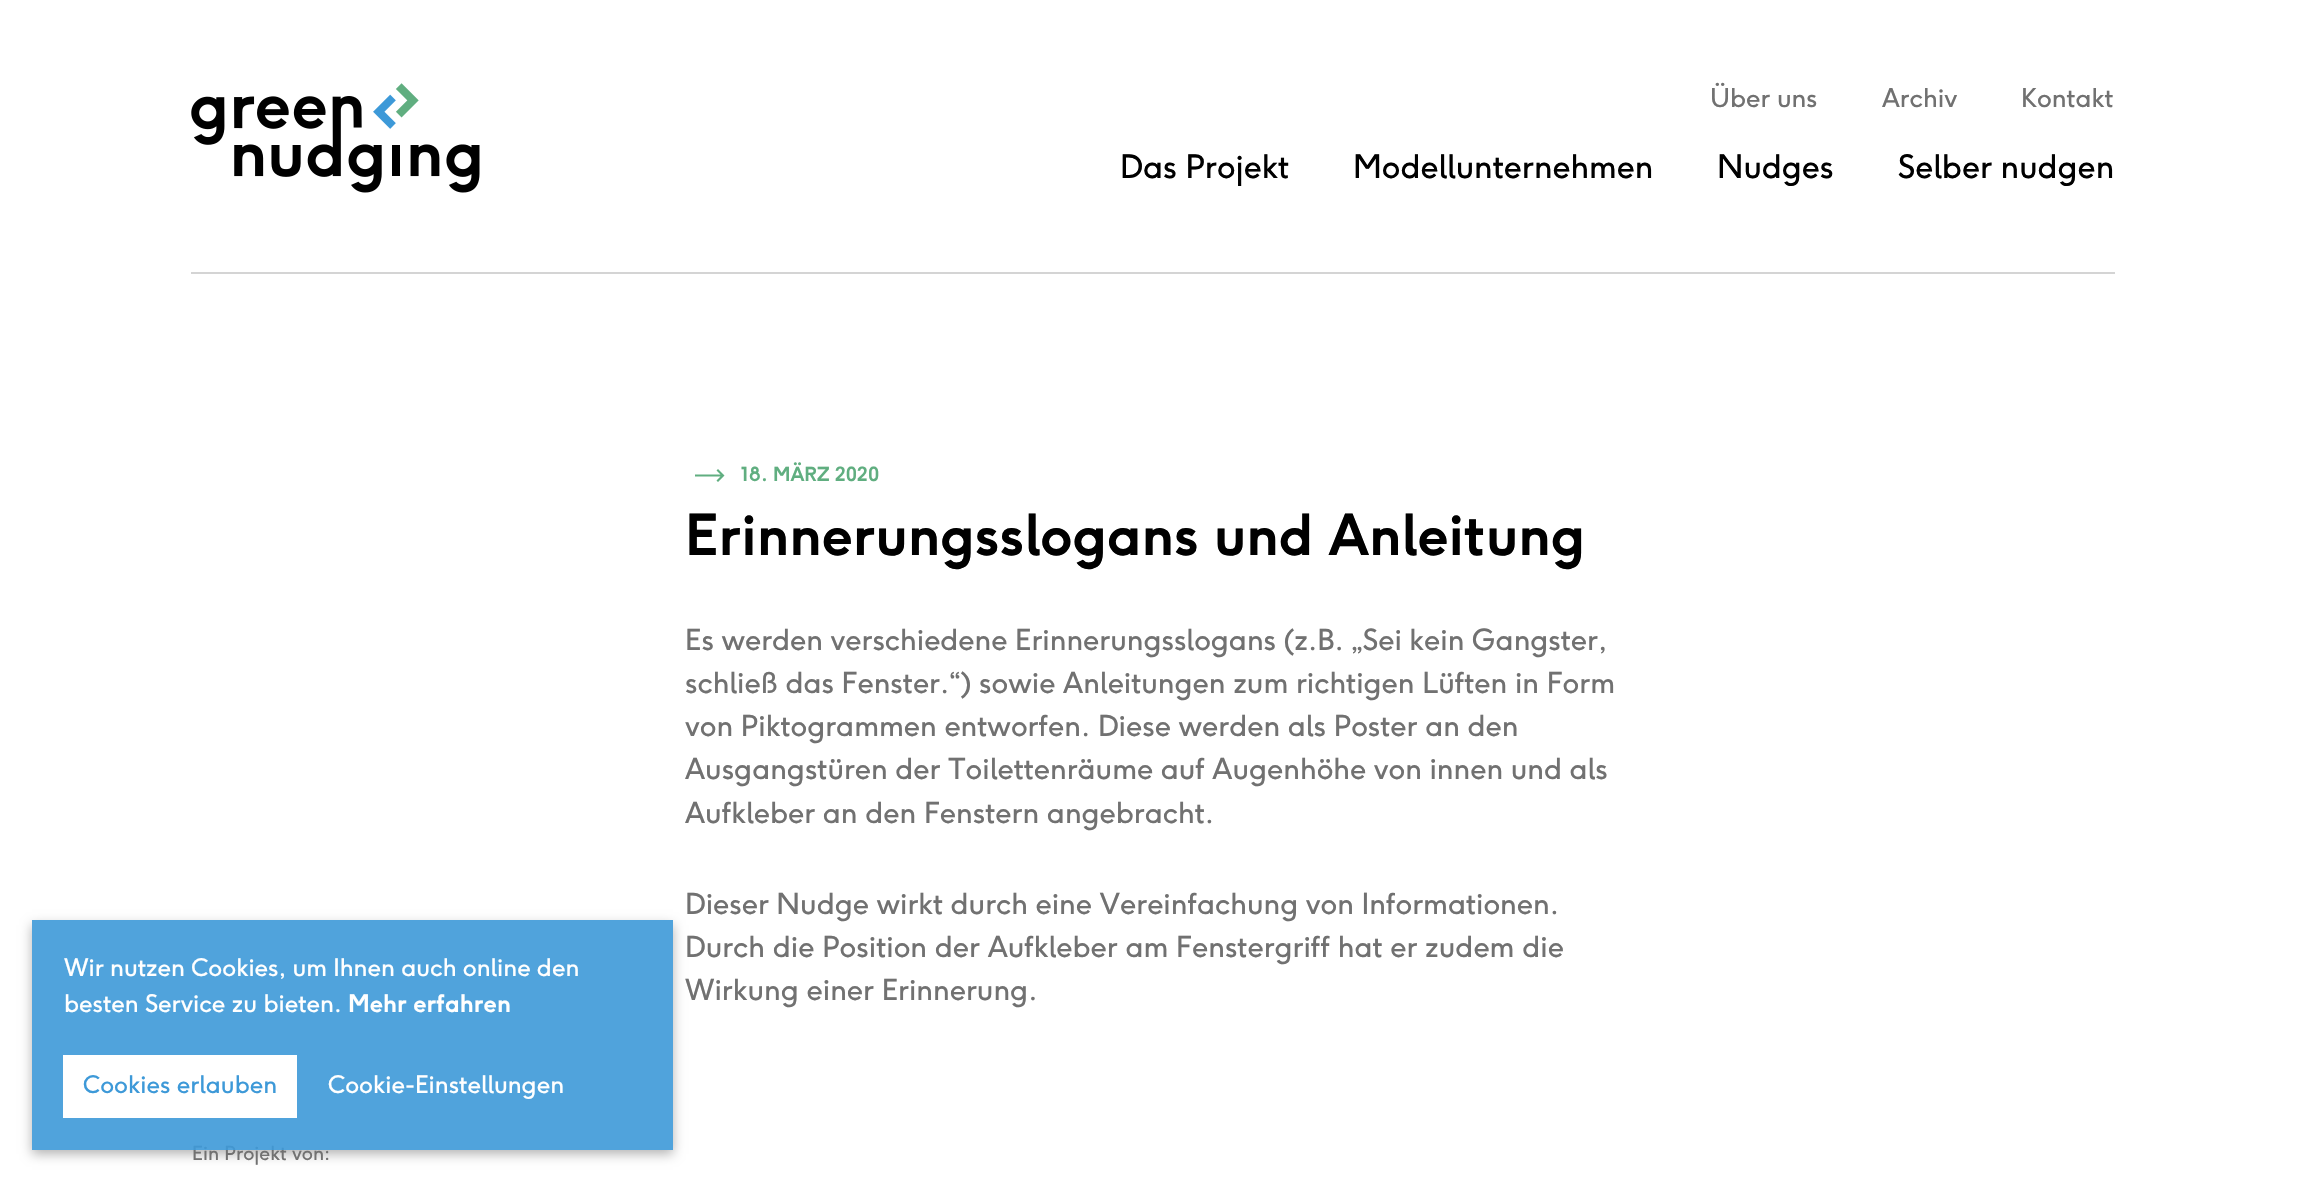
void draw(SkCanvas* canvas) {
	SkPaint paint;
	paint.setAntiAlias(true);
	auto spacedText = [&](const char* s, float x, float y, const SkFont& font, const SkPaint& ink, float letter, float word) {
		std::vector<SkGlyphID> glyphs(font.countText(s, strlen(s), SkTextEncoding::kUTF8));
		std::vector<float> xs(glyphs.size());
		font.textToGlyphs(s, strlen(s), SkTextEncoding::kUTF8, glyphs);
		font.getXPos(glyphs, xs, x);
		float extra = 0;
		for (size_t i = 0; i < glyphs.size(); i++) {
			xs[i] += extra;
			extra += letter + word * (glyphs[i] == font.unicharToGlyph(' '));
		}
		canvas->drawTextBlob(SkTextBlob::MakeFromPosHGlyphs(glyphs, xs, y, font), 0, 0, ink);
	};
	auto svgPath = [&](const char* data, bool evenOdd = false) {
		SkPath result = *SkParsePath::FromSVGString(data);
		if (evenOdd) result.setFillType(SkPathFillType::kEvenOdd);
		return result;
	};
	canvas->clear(0xffffffff);
	paint.setColor(0xffd4d4d4);
	canvas->drawRect(SkRect::MakeXYWH(191, 272, 1924, 2), paint);
	canvas->drawImageRect(SkImages::DeferredFromEncodedData(SkData::MakeFromFileName("img1.png")), SkRect::MakeXYWH(191, 83, 289, 110), SkSamplingOptions());
	SkFont f1(fontMgr->matchFamilyStyle("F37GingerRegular", SkFontStyle::Normal()), 25.5);
	f1.setSubpixel(true);
	paint.setColor(0xff717171);
	canvas->drawString("Über uns", 1710, 107, f1, paint);
	canvas->drawString("Archiv", 1882, 107, f1, paint);
	canvas->drawString("Kontakt", 2021, 107, f1, paint);
	SkFont f2(fontMgr->matchFamilyStyle("F37GingerRegular", SkFontStyle::Normal()), 32);
	f2.setSubpixel(true);
	paint.setColor(0xff000000);
	canvas->drawString("Das Projekt", 1120, 178, f2, paint);
	canvas->drawString("Modellunternehmen", 1353, 178, f2, paint);
	canvas->drawString("Nudges", 1717, 178, f2, paint);
	canvas->drawString("Selber nudgen", 1898, 178, f2, paint);
	SkFont f3(fontMgr->matchFamilyStyle("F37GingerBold", SkFontStyle::Bold()), 19.25);
	f3.setSubpixel(true);
	paint.setColor(0xff60ae80);
	canvas->drawString("18. MÄRZ 2020", 741, 481, f3, paint);
	canvas->drawPath(svgPath("M724.5 475.5L718 469L716.5 470.5L720.5 474.5H695V476.5H720.5L716.5 480.5L718 482Z"), paint);
	SkFont f4(fontMgr->matchFamilyStyle("F37GingerBold", SkFontStyle::Bold()), 56);
	f4.setSubpixel(true);
	paint.setColor(0xff000000);
	canvas->drawString("Erinnerungsslogans und Anleitung", 685, 555, f4, paint);
	SkFont f5(fontMgr->matchFamilyStyle("F37GingerRegular", SkFontStyle::Normal()), 28.8);
	f5.setSubpixel(true);
	paint.setColor(0xff717171);
	spacedText("Es werden verschiedene Erinnerungsslogans (z.B. „Sei kein Gangster,", 685, 650, f5, paint, 0, -0.25);
	spacedText("schließ das Fenster.“) sowie Anleitungen zum richtigen Lüften in Form", 685, 693, f5, paint, 0, -0.1);
	spacedText("von Piktogrammen entworfen. Diese werden als Poster an den", 685, 736, f5, paint, 0, -0.1);
	spacedText("Ausgangstüren der Toilettenräume auf Augenhöhe von innen und als", 685, 779, f5, paint, 0, -0.25);
	canvas->drawString("Aufkleber an den Fenstern angebracht.", 685, 823, f5, paint);
	spacedText("Dieser Nudge wirkt durch eine Vereinfachung von Informationen.", 685, 914, f5, paint, 0, -0.25);
	canvas->drawString("Durch die Position der Aufkleber am Fenstergriff hat er zudem die", 685, 957, f5, paint);
	canvas->drawString("Wirkung einer Erinnerung.", 685, 1000, f5, paint);
	canvas->save();
	canvas->clipPath(svgPath("M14 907H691V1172H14ZM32 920H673V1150H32Z", true), true);
	paint.setColor(0x4d000000);
	paint.setMaskFilter(SkMaskFilter::MakeBlur(kNormal_SkBlurStyle, 5.5));
	canvas->drawRect(SkRect::MakeXYWH(32, 925, 641, 229), paint);
	paint.setMaskFilter(nullptr);
	canvas->restore();
	SkFont f6(fontMgr->matchFamilyStyle("F37GingerRegular", SkFontStyle::Normal()), 19.25);
	f6.setSubpixel(true);
	paint.setColor(0xff717171);
	canvas->drawString("Ein Projekt von:", 192, 1160, f6, paint);
	paint.setColor(0xe63d99d8);
	canvas->drawRect(SkRect::MakeXYWH(32, 920, 641, 230), paint);
	SkFont f7(fontMgr->matchFamilyStyle("F37GingerRegular", SkFontStyle::Normal()), 24);
	f7.setSubpixel(true);
	paint.setColor(0xffffffff);
	spacedText("Wir nutzen Cookies, um Ihnen auch online den", 64, 976, f7, paint, 0, -0.25);
	canvas->drawString("besten Service zu bieten.", 64, 1012, f7, paint);
	SkFont f8(fontMgr->matchFamilyStyle("F37GingerBold", SkFontStyle::Bold()), 24);
	f8.setSubpixel(true);
	canvas->drawString("Mehr erfahren", 348, 1012, f8, paint);
	canvas->drawRect(SkRect::MakeXYWH(63, 1055, 234, 63), paint);
	paint.setColor(0xff3d99d8);
	canvas->drawString("Cookies erlauben", 83, 1093, f7, paint);
	paint.setColor(0xffffffff);
	canvas->drawString("Cookie-Einstellungen", 328, 1093, f7, paint);
}
